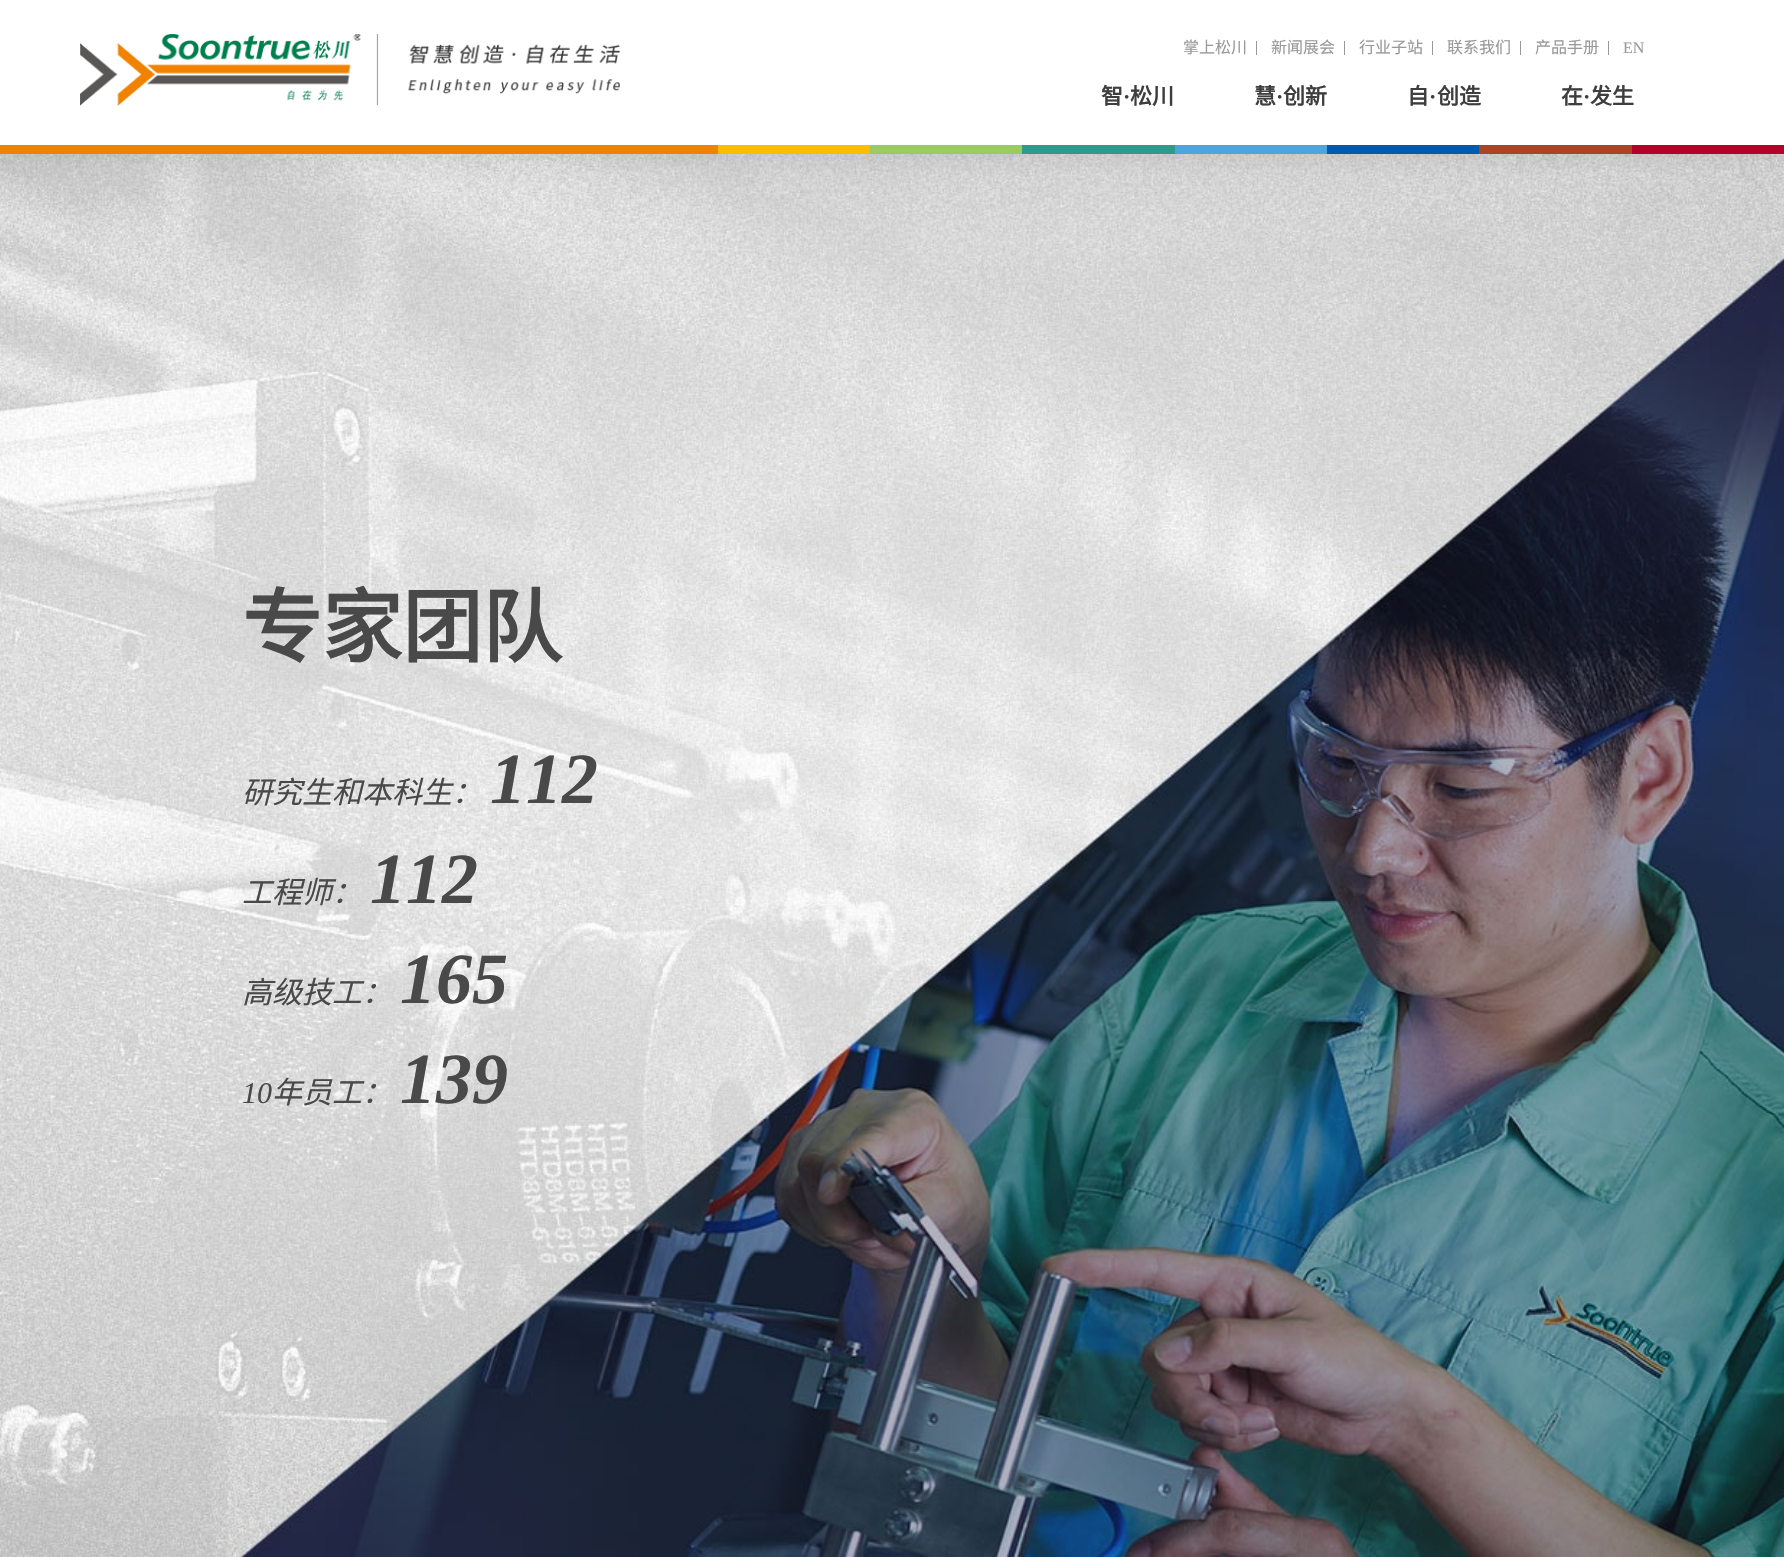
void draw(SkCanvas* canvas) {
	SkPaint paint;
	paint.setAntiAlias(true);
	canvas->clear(0xffffffff);
	canvas->drawImageRect(SkImages::DeferredFromEncodedData(SkData::MakeFromFileName("img2.png")), SkRect::MakeXYWH(0, 154, 1784, 1403), SkSamplingOptions());
	paint.setColor(0x1a000000);
	paint.setMaskFilter(SkMaskFilter::MakeBlur(kNormal_SkBlurStyle, 16));
	canvas->drawRect(SkRect::MakeXYWH(0, 3, 1784, 154), paint);
	paint.setMaskFilter(nullptr);
	paint.setColor(0xffffffff);
	canvas->drawRect(SkRect::MakeXYWH(0, 0, 1784, 145), paint);
	canvas->drawImageRect(SkImages::DeferredFromEncodedData(SkData::MakeFromFileName("img1.png")), SkRect::MakeXYWH(80, 34, 540, 72), SkSamplingOptions());
	SkFont f1(fontMgr->matchFamilyStyle("Noto Sans CJK SC", SkFontStyle::Normal()), 16);
	f1.setSubpixel(true);
	paint.setColor(0xff999999);
	canvas->drawString("掌上松川", 1183, 53, f1, paint);
	canvas->drawRect(SkRect::MakeXYWH(1256, 41, 1, 14), paint);
	canvas->drawString("新闻展会", 1271, 53, f1, paint);
	canvas->drawRect(SkRect::MakeXYWH(1344, 41, 1, 14), paint);
	canvas->drawString("行业子站", 1359, 53, f1, paint);
	canvas->drawRect(SkRect::MakeXYWH(1432, 41, 1, 14), paint);
	canvas->drawString("联系我们", 1447, 53, f1, paint);
	canvas->drawRect(SkRect::MakeXYWH(1520, 41, 1, 14), paint);
	canvas->drawString("产品手册", 1535, 53, f1, paint);
	canvas->drawRect(SkRect::MakeXYWH(1608, 41, 1, 14), paint);
	SkFont f2(fontMgr->matchFamilyStyle("Liberation Serif", SkFontStyle::Normal()), 16);
	f2.setSubpixel(true);
	canvas->drawString("EN", 1623, 53, f2, paint);
	SkFont f3(fontMgr->matchFamilyStyle("Noto Sans CJK SC", SkFontStyle::Bold()), 22);
	f3.setSubpixel(true);
	paint.setColor(0xff3e3e3e);
	canvas->drawString("智", 1101, 104, f3, paint);
	SkFont f4(fontMgr->matchFamilyStyle("Liberation Serif", SkFontStyle::Bold()), 22);
	f4.setSubpixel(true);
	canvas->drawString("·", 1123, 104, f4, paint);
	canvas->drawString("松川", 1130, 104, f3, paint);
	canvas->drawString("慧", 1254, 104, f3, paint);
	canvas->drawString("·", 1276, 104, f4, paint);
	canvas->drawString("创新", 1283, 104, f3, paint);
	canvas->drawString("自", 1407, 104, f3, paint);
	canvas->drawString("·", 1429, 104, f4, paint);
	canvas->drawString("创造", 1437, 104, f3, paint);
	canvas->drawString("在", 1561, 104, f3, paint);
	canvas->drawString("·", 1583, 104, f4, paint);
	canvas->drawString("发生", 1590, 104, f3, paint);
	paint.setColor(0xfff08200);
	canvas->drawRect(SkRect::MakeXYWH(0, 145, 718, 9), paint);
	paint.setColor(0xfffabe00);
	canvas->drawRect(SkRect::MakeXYWH(718, 145, 152, 9), paint);
	paint.setColor(0xff9bcb60);
	canvas->drawRect(SkRect::MakeXYWH(870, 145, 152, 9), paint);
	paint.setColor(0xff2f9a8c);
	canvas->drawRect(SkRect::MakeXYWH(1022, 145, 153, 9), paint);
	paint.setColor(0xff4da5dc);
	canvas->drawRect(SkRect::MakeXYWH(1175, 145, 152, 9), paint);
	paint.setColor(0xff005bac);
	canvas->drawRect(SkRect::MakeXYWH(1327, 145, 152, 9), paint);
	paint.setColor(0xffa84525);
	canvas->drawRect(SkRect::MakeXYWH(1479, 145, 153, 9), paint);
	paint.setColor(0xffb50029);
	canvas->drawRect(SkRect::MakeXYWH(1632, 145, 152, 9), paint);
	SkFont f5(fontMgr->matchFamilyStyle("Noto Sans CJK SC", SkFontStyle::Bold()), 80);
	f5.setSubpixel(true);
	paint.setColor(0xff494949);
	canvas->drawString("专家团队", 242, 656, f5, paint);
	SkFont f6(fontMgr->matchFamilyStyle("Noto Sans CJK SC", SkFontStyle::Italic()), 30);
	f6.setSubpixel(true);
	canvas->drawString("研究生和本科生：", 242, 803, f6, paint);
	SkFont f7(fontMgr->matchFamilyStyle("Liberation Serif", SkFontStyle::BoldItalic()), 72);
	f7.setSubpixel(true);
	canvas->drawString("112", 490, 803, f7, paint);
	canvas->drawString("工程师：", 242, 903, f6, paint);
	canvas->drawString("112", 370, 903, f7, paint);
	canvas->drawString("高级技工：", 242, 1003, f6, paint);
	canvas->drawString("165", 400, 1003, f7, paint);
	SkFont f8(fontMgr->matchFamilyStyle("Liberation Serif", SkFontStyle::Italic()), 30);
	f8.setSubpixel(true);
	canvas->drawString("10", 242, 1103, f8, paint);
	canvas->drawString("年员工：", 272, 1103, f6, paint);
	canvas->drawString("139", 400, 1103, f7, paint);
}
